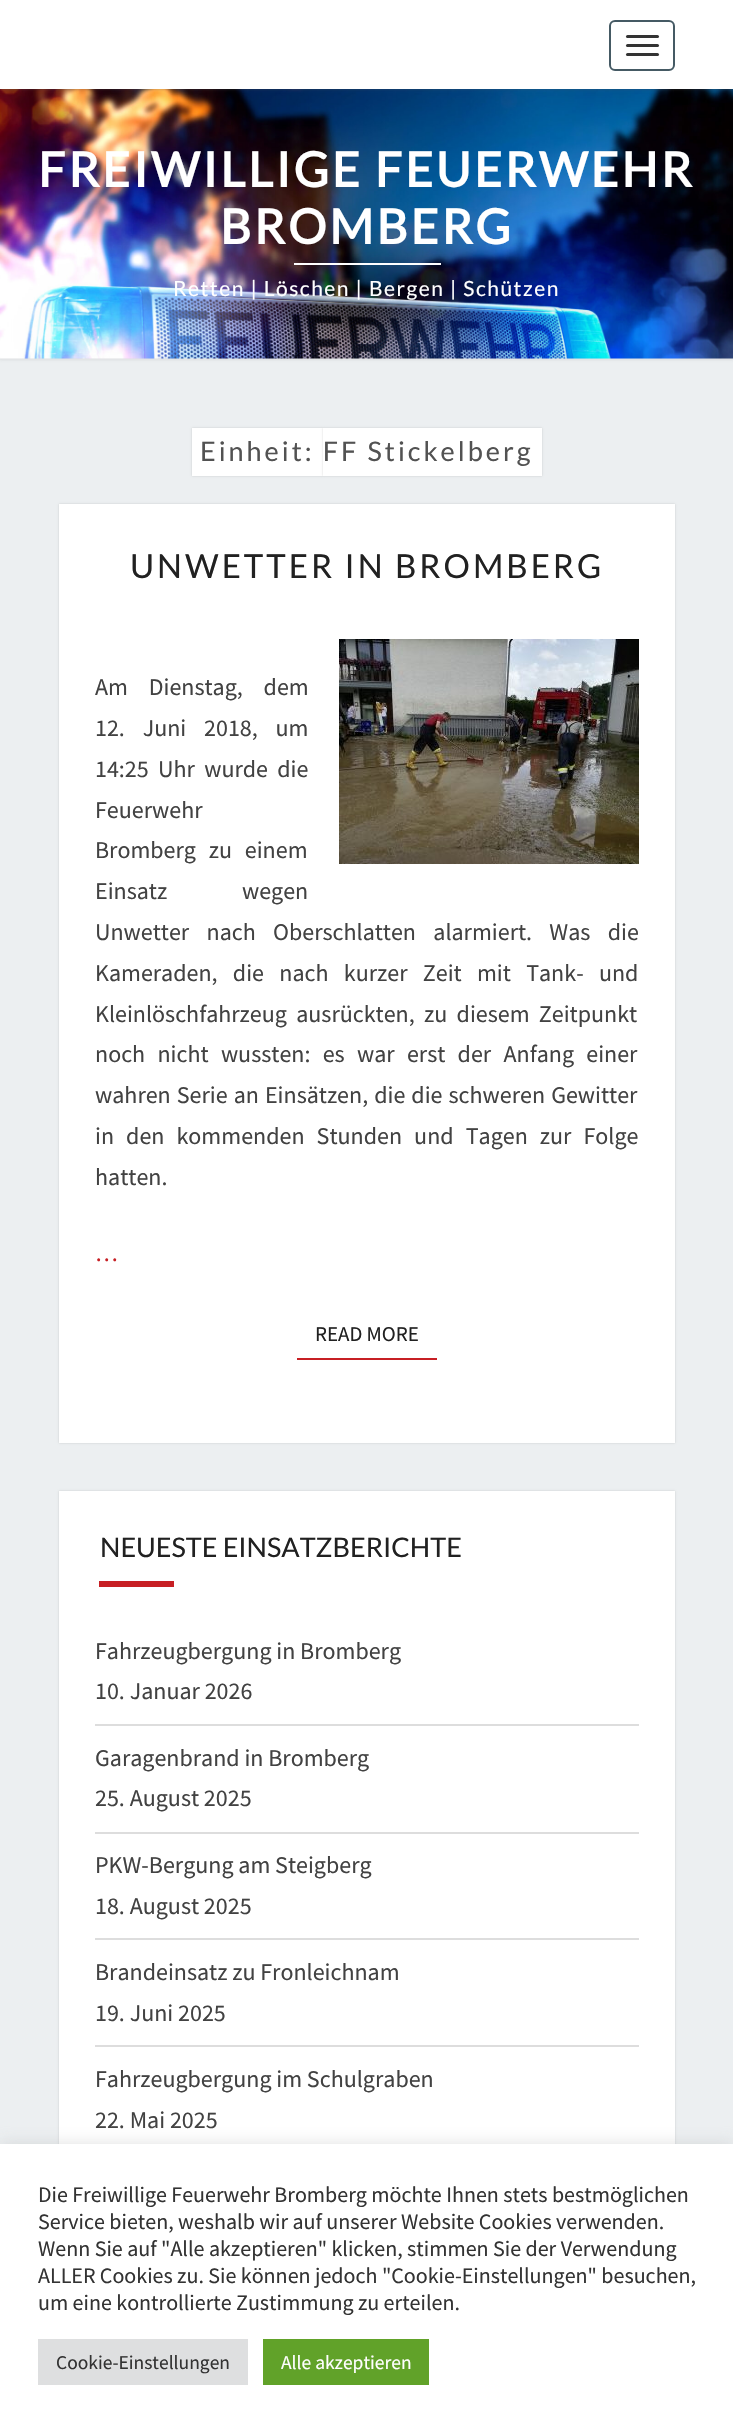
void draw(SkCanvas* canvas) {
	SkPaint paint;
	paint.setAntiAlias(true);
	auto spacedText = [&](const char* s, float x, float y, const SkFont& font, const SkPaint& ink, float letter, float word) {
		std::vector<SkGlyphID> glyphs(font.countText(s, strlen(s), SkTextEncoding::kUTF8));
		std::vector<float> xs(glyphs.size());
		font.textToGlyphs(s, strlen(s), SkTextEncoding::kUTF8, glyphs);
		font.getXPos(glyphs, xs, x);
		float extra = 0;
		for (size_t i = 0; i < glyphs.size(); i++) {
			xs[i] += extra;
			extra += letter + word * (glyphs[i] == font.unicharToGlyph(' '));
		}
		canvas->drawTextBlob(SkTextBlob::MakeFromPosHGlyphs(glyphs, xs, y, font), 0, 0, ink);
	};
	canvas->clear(0xffeceff1);
	paint.setColor(0x4db6b6b6);
	paint.setMaskFilter(SkMaskFilter::MakeBlur(kNormal_SkBlurStyle, 1.5));
	canvas->drawRect(SkRect::MakeXYWH(-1, 87, 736, 273), paint);
	paint.setMaskFilter(nullptr);
	canvas->drawImageRect(SkImages::DeferredFromEncodedData(SkData::MakeFromFileName("img1.png")), SkRect::MakeXYWH(0, 89, 733, 270), SkSamplingOptions());
	paint.setColor(0x33646464);
	paint.setMaskFilter(SkMaskFilter::MakeBlur(kNormal_SkBlurStyle, 1));
	canvas->drawRect(SkRect::MakeXYWH(0, 2, 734, 88), paint);
	paint.setMaskFilter(nullptr);
	paint.setColor(0xffffffff);
	canvas->drawRect(SkRect::MakeXYWH(0, 0, 733, 89), paint);
	paint.setStroke(true);
	paint.setStrokeWidth(2);
	paint.setColor(0xff455a64);
	canvas->drawRoundRect(SkRect::MakeXYWH(610, 21, 64, 49), 5, 5, paint);
	paint.setStroke(false);
	paint.setColor(0xff333333);
	canvas->drawRoundRect(SkRect::MakeXYWH(626, 35, 33, 3), 1.5, 1.5, paint);
	canvas->drawRoundRect(SkRect::MakeXYWH(626, 44, 33, 3), 1.5, 1.5, paint);
	canvas->drawRoundRect(SkRect::MakeXYWH(626, 53, 33, 3), 1.5, 1.5, paint);
	SkFont f1(fontMgr->matchFamilyStyle("Lato", SkFontStyle::Bold()), 48);
	f1.setSubpixel(true);
	paint.setColor(0xffffffff);
	spacedText("FREIWILLIGE FEUERWEHR", 38, 187, f1, paint, 3, 0);
	spacedText("BROMBERG", 220, 244, f1, paint, 3, 0);
	canvas->drawRect(SkRect::MakeXYWH(294, 263, 147, 2), paint);
	SkFont f2(fontMgr->matchFamilyStyle("Lato", SkFontStyle::Normal()), 21);
	f2.setSubpixel(true);
	spacedText("Retten | Löschen | Bergen | Schützen", 173, 296, f2, paint, 1.5, 0);
	paint.setColor(0x26000000);
	paint.setMaskFilter(SkMaskFilter::MakeBlur(kNormal_SkBlurStyle, 1));
	canvas->drawRect(SkRect::MakeXYWH(192, 428, 131, 48), paint);
	paint.setMaskFilter(nullptr);
	paint.setColor(0xffffffff);
	canvas->drawRect(SkRect::MakeXYWH(192, 428, 131, 48), paint);
	paint.setColor(0x26000000);
	paint.setMaskFilter(SkMaskFilter::MakeBlur(kNormal_SkBlurStyle, 1));
	canvas->drawRect(SkRect::MakeXYWH(323, 428, 219, 48), paint);
	paint.setMaskFilter(nullptr);
	paint.setColor(0xffffffff);
	canvas->drawRect(SkRect::MakeXYWH(323, 428, 219, 48), paint);
	SkFont f3(fontMgr->matchFamilyStyle("Lato", SkFontStyle::Normal()), 27);
	f3.setSubpixel(true);
	paint.setColor(0xff525252);
	spacedText("Einheit: FF Stickelberg", 200, 461, f3, paint, 3, 0);
	paint.setColor(0x26000000);
	paint.setMaskFilter(SkMaskFilter::MakeBlur(kNormal_SkBlurStyle, 1));
	canvas->drawRect(SkRect::MakeXYWH(59, 504, 616, 939), paint);
	paint.setMaskFilter(nullptr);
	paint.setColor(0xffffffff);
	canvas->drawRect(SkRect::MakeXYWH(59, 504, 616, 939), paint);
	SkFont f4(fontMgr->matchFamilyStyle("Lato", SkFontStyle::Normal()), 33);
	f4.setSubpixel(true);
	paint.setColor(0xff212121);
	spacedText("UNWETTER IN BROMBERG", 130, 578, f4, paint, 3, 0);
	canvas->drawImageRect(SkImages::DeferredFromEncodedData(SkData::MakeFromFileName("img2.png")), SkRect::MakeXYWH(339, 639, 300, 225), SkSamplingOptions());
	SkFont f5(fontMgr->matchFamilyStyle("Source Sans Pro", SkFontStyle::Normal()), 24);
	f5.setSubpixel(true);
	paint.setColor(0xff424242);
	spacedText("Am Dienstag, dem", 95, 695, f5, paint, 0, 16);
	spacedText("12. Juni 2018, um", 95, 736, f5, paint, 0, 13);
	spacedText("14:25 Uhr wurde die", 95, 777, f5, paint, 0, 4.5);
	canvas->drawString("Feuerwehr", 95, 818, f5, paint);
	spacedText("Bromberg zu einem", 95, 858, f5, paint, 0, 8);
	spacedText("Einsatz wegen", 95, 899, f5, paint, 0, 70);
	spacedText("Unwetter nach Oberschlatten alarmiert. Was die", 95, 940, f5, paint, 0, 12.5);
	spacedText("Kameraden, die nach kurzer Zeit mit Tank- und", 95, 981, f5, paint, 0, 10.5);
	spacedText("Kleinlöschfahrzeug ausrückten, zu diesem Zeitpunkt", 95, 1022, f5, paint, 0, 4.5);
	spacedText("noch nicht wussten: es war erst der Anfang einer", 95, 1062, f5, paint, 0, 7.5);
	spacedText("wahren Serie an Einsätzen, die die schweren Gewitter", 95, 1103, f5, paint, 0, 1.25);
	spacedText("in den kommenden Stunden und Tagen zur Folge", 95, 1144, f5, paint, 0, 7.25);
	canvas->drawString("hatten.", 95, 1185, f5, paint);
	paint.setColor(0xffc71f24);
	canvas->drawString("…", 95, 1261, f5, paint);
	canvas->drawRect(SkRect::MakeXYWH(297, 1358, 140, 2), paint);
	SkFont f6(fontMgr->matchFamilyStyle("Source Sans Pro", SkFontStyle::Normal()), 21);
	f6.setSubpixel(true);
	paint.setColor(0xff212121);
	canvas->drawString("READ MORE", 315, 1341, f6, paint);
	paint.setColor(0x26000000);
	paint.setMaskFilter(SkMaskFilter::MakeBlur(kNormal_SkBlurStyle, 1));
	canvas->drawRect(SkRect::MakeXYWH(59, 1491, 616, 713), paint);
	paint.setMaskFilter(nullptr);
	paint.setColor(0xffffffff);
	canvas->drawRect(SkRect::MakeXYWH(59, 1491, 616, 653), paint);
	paint.setColor(0xff212121);
	canvas->drawString("NEUESTE EINSATZBERICHTE", 100, 1557, f3, paint);
	paint.setColor(0xffc71f24);
	canvas->drawRect(SkRect::MakeXYWH(99, 1581, 75, 6), paint);
	paint.setColor(0xffdddddd);
	canvas->drawRect(SkRect::MakeXYWH(95, 1724, 544, 2), paint);
	paint.setColor(0xff424242);
	canvas->drawString("Fahrzeugbergung in Bromberg", 95, 1659, f5, paint);
	canvas->drawString("10. Januar 2026", 95, 1699, f5, paint);
	paint.setColor(0xffdddddd);
	canvas->drawRect(SkRect::MakeXYWH(95, 1832, 544, 2), paint);
	paint.setColor(0xff424242);
	canvas->drawString("Garagenbrand in Bromberg", 95, 1766, f5, paint);
	canvas->drawString("25. August 2025", 95, 1806, f5, paint);
	paint.setColor(0xffdddddd);
	canvas->drawRect(SkRect::MakeXYWH(95, 1938, 544, 2), paint);
	paint.setColor(0xff424242);
	canvas->drawString("PKW-Bergung am Steigberg", 95, 1873, f5, paint);
	canvas->drawString("18. August 2025", 95, 1914, f5, paint);
	paint.setColor(0xffdddddd);
	canvas->drawRect(SkRect::MakeXYWH(95, 2045, 544, 2), paint);
	paint.setColor(0xff424242);
	canvas->drawString("Brandeinsatz zu Fronleichnam", 95, 1980, f5, paint);
	canvas->drawString("19. Juni 2025", 95, 2021, f5, paint);
	canvas->drawString("Fahrzeugbergung im Schulgraben", 95, 2087, f5, paint);
	canvas->drawString("22. Mai 2025", 95, 2128, f5, paint);
	paint.setColor(0x4dacabab);
	paint.setMaskFilter(SkMaskFilter::MakeBlur(kNormal_SkBlurStyle, 7.5));
	canvas->drawRect(SkRect::MakeXYWH(0, 2142, 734, 287), paint);
	paint.setMaskFilter(nullptr);
	paint.setColor(0xffffffff);
	canvas->drawRect(SkRect::MakeXYWH(0, 2144, 733, 285), paint);
	SkFont f7(fontMgr->matchFamilyStyle("Source Sans Pro", SkFontStyle::Normal()), 22);
	f7.setSubpixel(true);
	paint.setColor(0xff333333);
	canvas->drawString("Die Freiwillige Feuerwehr Bromberg möchte Ihnen stets bestmöglichen", 38, 2202, f7, paint);
	canvas->drawString("Service bieten, weshalb wir auf unserer Website Cookies verwenden.", 38, 2229, f7, paint);
	canvas->drawString("Wenn Sie auf \"Alle akzeptieren\" klicken, stimmen Sie der Verwendung", 38, 2256, f7, paint);
	canvas->drawString("ALLER Cookies zu. Sie können jedoch \"Cookie-Einstellungen\" besuchen,", 38, 2283, f7, paint);
	canvas->drawString("um eine kontrollierte Zustimmung zu erteilen.", 38, 2310, f7, paint);
	paint.setColor(0xffdedfe0);
	canvas->drawRect(SkRect::MakeXYWH(38, 2339, 210, 46), paint);
	SkFont f8(fontMgr->matchFamilyStyle("Source Sans Pro", SkFontStyle::Normal()), 19.5);
	f8.setSubpixel(true);
	paint.setColor(0xff333333);
	canvas->drawString("Cookie-Einstellungen", 56, 2369, f8, paint);
	paint.setColor(0xff61a229);
	canvas->drawRect(SkRect::MakeXYWH(263, 2339, 166, 46), paint);
	paint.setColor(0xffffffff);
	canvas->drawString("Alle akzeptieren", 281, 2369, f8, paint);
}
